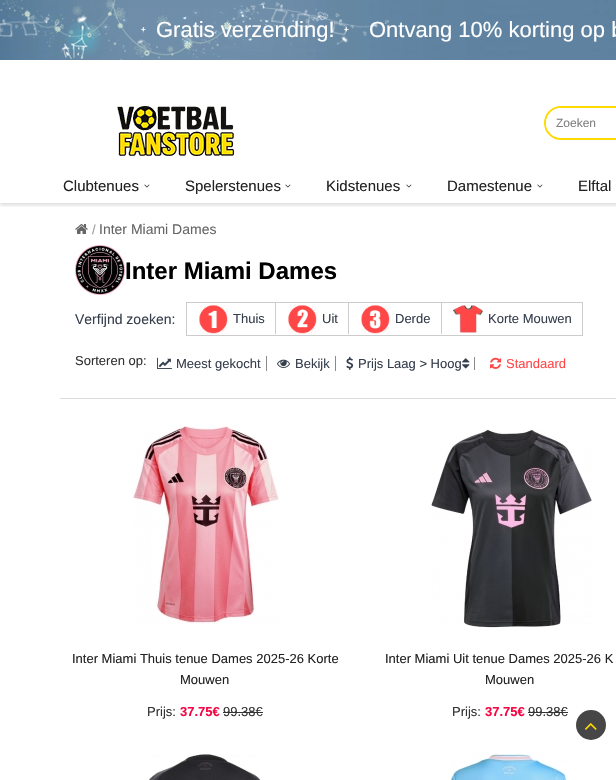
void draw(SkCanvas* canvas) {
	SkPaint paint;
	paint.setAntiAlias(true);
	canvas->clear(0xffffffff);
	canvas->drawImageRect(SkImages::DeferredFromEncodedData(SkData::MakeFromFileName("img1.png")), SkRect::MakeXYWH(0, 0, 616, 60), SkSamplingOptions());
	SkFont f1(fontMgr->matchFamilyStyle("Liberation Sans", SkFontStyle::Bold()), 8);
	f1.setSubpixel(true);
	paint.setColor(0xffffffff);
	canvas->drawString("+", 141, 32, f1, paint);
	SkFont f2(fontMgr->matchFamilyStyle("Liberation Sans", SkFontStyle::Normal()), 22);
	f2.setSubpixel(true);
	canvas->drawString("Gratis verzending!", 156, 37, f2, paint);
	canvas->drawString("+", 344, 32, f1, paint);
	canvas->drawString("Ontvang 10% korting op b", 369, 37, f2, paint);
	canvas->save();
	canvas->clipRect(SkRect::MakeXYWH(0, 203, 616, 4));
	paint.setColor(0x26000000);
	paint.setMaskFilter(SkMaskFilter::MakeBlur(kNormal_SkBlurStyle, 2));
	canvas->drawRect(SkRect::MakeXYWH(0, 62, 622, 143), paint);
	paint.setMaskFilter(nullptr);
	canvas->restore();
	canvas->drawImageRect(SkImages::DeferredFromEncodedData(SkData::MakeFromFileName("img2.png")), SkRect::MakeXYWH(117, 106, 117, 50), SkSamplingOptions());
	paint.setStroke(true);
	paint.setStrokeWidth(2);
	paint.setColor(0xffffda00);
	canvas->drawRoundRect(SkRect::MakeXYWH(545, 107, 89, 32), 16, 16, paint);
	paint.setStroke(false);
	paint.setColor(0xffffffff);
	canvas->drawRoundRect(SkRect::MakeXYWH(546, 108, 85, 30), 15, 15, paint);
	SkFont f3(fontMgr->matchFamilyStyle("Liberation Sans", SkFontStyle::Normal()), 12);
	f3.setSubpixel(true);
	paint.setColor(0xff808080);
	canvas->drawString("Zoeken", 556, 127, f3, paint);
	SkFont f4(fontMgr->matchFamilyStyle("Liberation Sans", SkFontStyle::Normal()), 15);
	f4.setSubpixel(true);
	paint.setColor(0xff222222);
	canvas->drawString("Clubtenues", 63, 191, f4, paint);
	canvas->drawImageRect(SkImages::DeferredFromEncodedData(SkData::MakeFromFileName("img3.png")), SkRect::MakeXYWH(144, 184, 6, 4), SkSamplingOptions());
	canvas->drawString("Spelerstenues", 185, 191, f4, paint);
	canvas->drawImageRect(SkImages::DeferredFromEncodedData(SkData::MakeFromFileName("img3.png")), SkRect::MakeXYWH(285, 184, 6, 4), SkSamplingOptions());
	canvas->drawString("Kidstenues", 326, 191, f4, paint);
	canvas->drawImageRect(SkImages::DeferredFromEncodedData(SkData::MakeFromFileName("img3.png")), SkRect::MakeXYWH(406, 184, 6, 4), SkSamplingOptions());
	canvas->drawString("Damestenue", 447, 191, f4, paint);
	canvas->drawImageRect(SkImages::DeferredFromEncodedData(SkData::MakeFromFileName("img3.png")), SkRect::MakeXYWH(537, 184, 6, 4), SkSamplingOptions());
	canvas->drawString("Elftal", 578, 191, f4, paint);
	canvas->drawImageRect(SkImages::DeferredFromEncodedData(SkData::MakeFromFileName("img4.png")), SkRect::MakeXYWH(75, 224, 13, 10), SkSamplingOptions());
	SkFont f5(fontMgr->matchFamilyStyle("Liberation Sans", SkFontStyle::Normal()), 13);
	f5.setSubpixel(true);
	paint.setColor(0xff999999);
	canvas->drawString("/", 92, 234, f5, paint);
	SkFont f6(fontMgr->matchFamilyStyle("Liberation Sans", SkFontStyle::Normal()), 14);
	f6.setSubpixel(true);
	paint.setColor(0xff666666);
	canvas->drawString("Inter Miami Dames", 99, 234, f6, paint);
	canvas->drawImageRect(SkImages::DeferredFromEncodedData(SkData::MakeFromFileName("img5.png")), SkRect::MakeXYWH(75, 245, 50, 50), SkSamplingOptions());
	SkFont f7(fontMgr->matchFamilyStyle("Liberation Sans", SkFontStyle::Bold()), 24);
	f7.setSubpixel(true);
	paint.setColor(0xff000000);
	canvas->drawString("Inter Miami Dames", 125, 279, f7, paint);
	paint.setColor(0xff363f4d);
	canvas->drawString("Verfijnd zoeken:", 75, 324, f6, paint);
	paint.setStroke(true);
	paint.setStrokeWidth(1);
	paint.setColor(0xffcccccc);
	canvas->drawRect(SkRect::MakeXYWH(186.5, 302.5, 396, 33), paint);
	paint.setStroke(false);
	canvas->drawRect(SkRect::MakeXYWH(275, 303, 1, 32), paint);
	paint.setColor(0xffffffff);
	canvas->drawRect(SkRect::MakeXYWH(275, 334, 1, 1), paint);
	canvas->drawImageRect(SkImages::DeferredFromEncodedData(SkData::MakeFromFileName("img6.png")), SkRect::MakeXYWH(199, 305, 29, 29), SkSamplingOptions());
	paint.setColor(0xff363f4d);
	canvas->drawString("Thuis", 233, 323, f5, paint);
	paint.setColor(0xffcccccc);
	canvas->drawRect(SkRect::MakeXYWH(348, 303, 1, 32), paint);
	paint.setColor(0xffffffff);
	canvas->drawRect(SkRect::MakeXYWH(348, 334, 1, 1), paint);
	canvas->drawImageRect(SkImages::DeferredFromEncodedData(SkData::MakeFromFileName("img7.png")), SkRect::MakeXYWH(288, 305, 29, 29), SkSamplingOptions());
	paint.setColor(0xff363f4d);
	canvas->drawString("Uit", 322, 323, f5, paint);
	paint.setColor(0xffcccccc);
	canvas->drawRect(SkRect::MakeXYWH(441, 303, 1, 32), paint);
	paint.setColor(0xffffffff);
	canvas->drawRect(SkRect::MakeXYWH(441, 334, 1, 1), paint);
	canvas->drawImageRect(SkImages::DeferredFromEncodedData(SkData::MakeFromFileName("img8.png")), SkRect::MakeXYWH(361, 305, 29, 29), SkSamplingOptions());
	paint.setColor(0xff363f4d);
	canvas->drawString("Derde", 395, 323, f5, paint);
	canvas->drawImageRect(SkImages::DeferredFromEncodedData(SkData::MakeFromFileName("img9.png")), SkRect::MakeXYWH(453, 305, 30, 28), SkSamplingOptions());
	canvas->drawString("Korte Mouwen", 488, 323, f5, paint);
	paint.setColor(0xffdddddd);
	canvas->drawRect(SkRect::MakeXYWH(60, 398, 556, 1), paint);
	paint.setColor(0xff333333);
	canvas->drawString("Sorteren op:", 75, 365, f5, paint);
	paint.setColor(0xff8a8a8a);
	canvas->drawRect(SkRect::MakeXYWH(266, 356, 1, 15), paint);
	canvas->drawImageRect(SkImages::DeferredFromEncodedData(SkData::MakeFromFileName("img10.png")), SkRect::MakeXYWH(157, 357, 15, 12), SkSamplingOptions());
	paint.setColor(0xff363f4d);
	canvas->drawString("Meest gekocht", 176, 368, f5, paint);
	paint.setColor(0xff8a8a8a);
	canvas->drawRect(SkRect::MakeXYWH(335, 356, 1, 15), paint);
	canvas->drawImageRect(SkImages::DeferredFromEncodedData(SkData::MakeFromFileName("img11.png")), SkRect::MakeXYWH(277, 359, 13, 9), SkSamplingOptions());
	paint.setColor(0xff363f4d);
	canvas->drawString("Bekijk", 295, 368, f5, paint);
	paint.setColor(0xff8a8a8a);
	canvas->drawRect(SkRect::MakeXYWH(474, 357, 1, 13), paint);
	canvas->drawImageRect(SkImages::DeferredFromEncodedData(SkData::MakeFromFileName("img12.png")), SkRect::MakeXYWH(346, 356, 8, 14), SkSamplingOptions());
	paint.setColor(0xff363f4d);
	canvas->drawString("Prijs Laag > Hoog", 358, 368, f5, paint);
	canvas->drawImageRect(SkImages::DeferredFromEncodedData(SkData::MakeFromFileName("img13.png")), SkRect::MakeXYWH(462, 358, 8, 11), SkSamplingOptions());
	canvas->drawImageRect(SkImages::DeferredFromEncodedData(SkData::MakeFromFileName("img14.png")), SkRect::MakeXYWH(490, 357, 12, 12), SkSamplingOptions());
	paint.setColor(0xffff4747);
	canvas->drawString("Standaard", 506, 368, f5, paint);
	canvas->drawImageRect(SkImages::DeferredFromEncodedData(SkData::MakeFromFileName("img15.png")), SkRect::MakeXYWH(133, 426, 146, 198), SkSamplingOptions());
	paint.setColor(0xff222222);
	canvas->drawString("Inter Miami Thuis tenue Dames 2025-26 Korte", 72, 663, f5, paint);
	canvas->drawString("Mouwen", 180, 684, f5, paint);
	paint.setColor(0xff333333);
	canvas->drawString("Prijs:", 147, 716, f5, paint);
	SkFont f8(fontMgr->matchFamilyStyle("Liberation Sans", SkFontStyle::Bold()), 13);
	f8.setSubpixel(true);
	paint.setColor(0xfff30744);
	canvas->drawString("37.75€", 180, 716, f8, paint);
	paint.setColor(0xff333333);
	canvas->drawString("99.38€", 223, 716, f5, paint);
	canvas->drawRect(SkRect::MakeXYWH(223, 712, 40, 1), paint);
	canvas->drawImageRect(SkImages::DeferredFromEncodedData(SkData::MakeFromFileName("img16.png")), SkRect::MakeXYWH(431, 429, 161, 199), SkSamplingOptions());
	paint.setColor(0xff222222);
	canvas->drawString("Inter Miami Uit tenue Dames 2025-26 K", 385, 663, f5, paint);
	canvas->drawString("Mouwen", 485, 684, f5, paint);
	paint.setColor(0xff333333);
	canvas->drawString("Prijs:", 452, 716, f5, paint);
	paint.setColor(0xfff30744);
	canvas->drawString("37.75€", 485, 716, f8, paint);
	paint.setColor(0xff333333);
	canvas->drawString("99.38€", 528, 716, f5, paint);
	canvas->drawRect(SkRect::MakeXYWH(528, 712, 40, 1), paint);
	canvas->drawImageRect(SkImages::DeferredFromEncodedData(SkData::MakeFromFileName("img17.png")), SkRect::MakeXYWH(149, 754, 112, 26), SkSamplingOptions());
	canvas->drawImageRect(SkImages::DeferredFromEncodedData(SkData::MakeFromFileName("img18.png")), SkRect::MakeXYWH(450, 753, 117, 27), SkSamplingOptions());
	paint.setColor(0xff464646);
	canvas->drawCircle(591, 725, 15, paint);
	canvas->drawImageRect(SkImages::DeferredFromEncodedData(SkData::MakeFromFileName("img19.png")), SkRect::MakeXYWH(585, 723, 12, 7), SkSamplingOptions());
}
